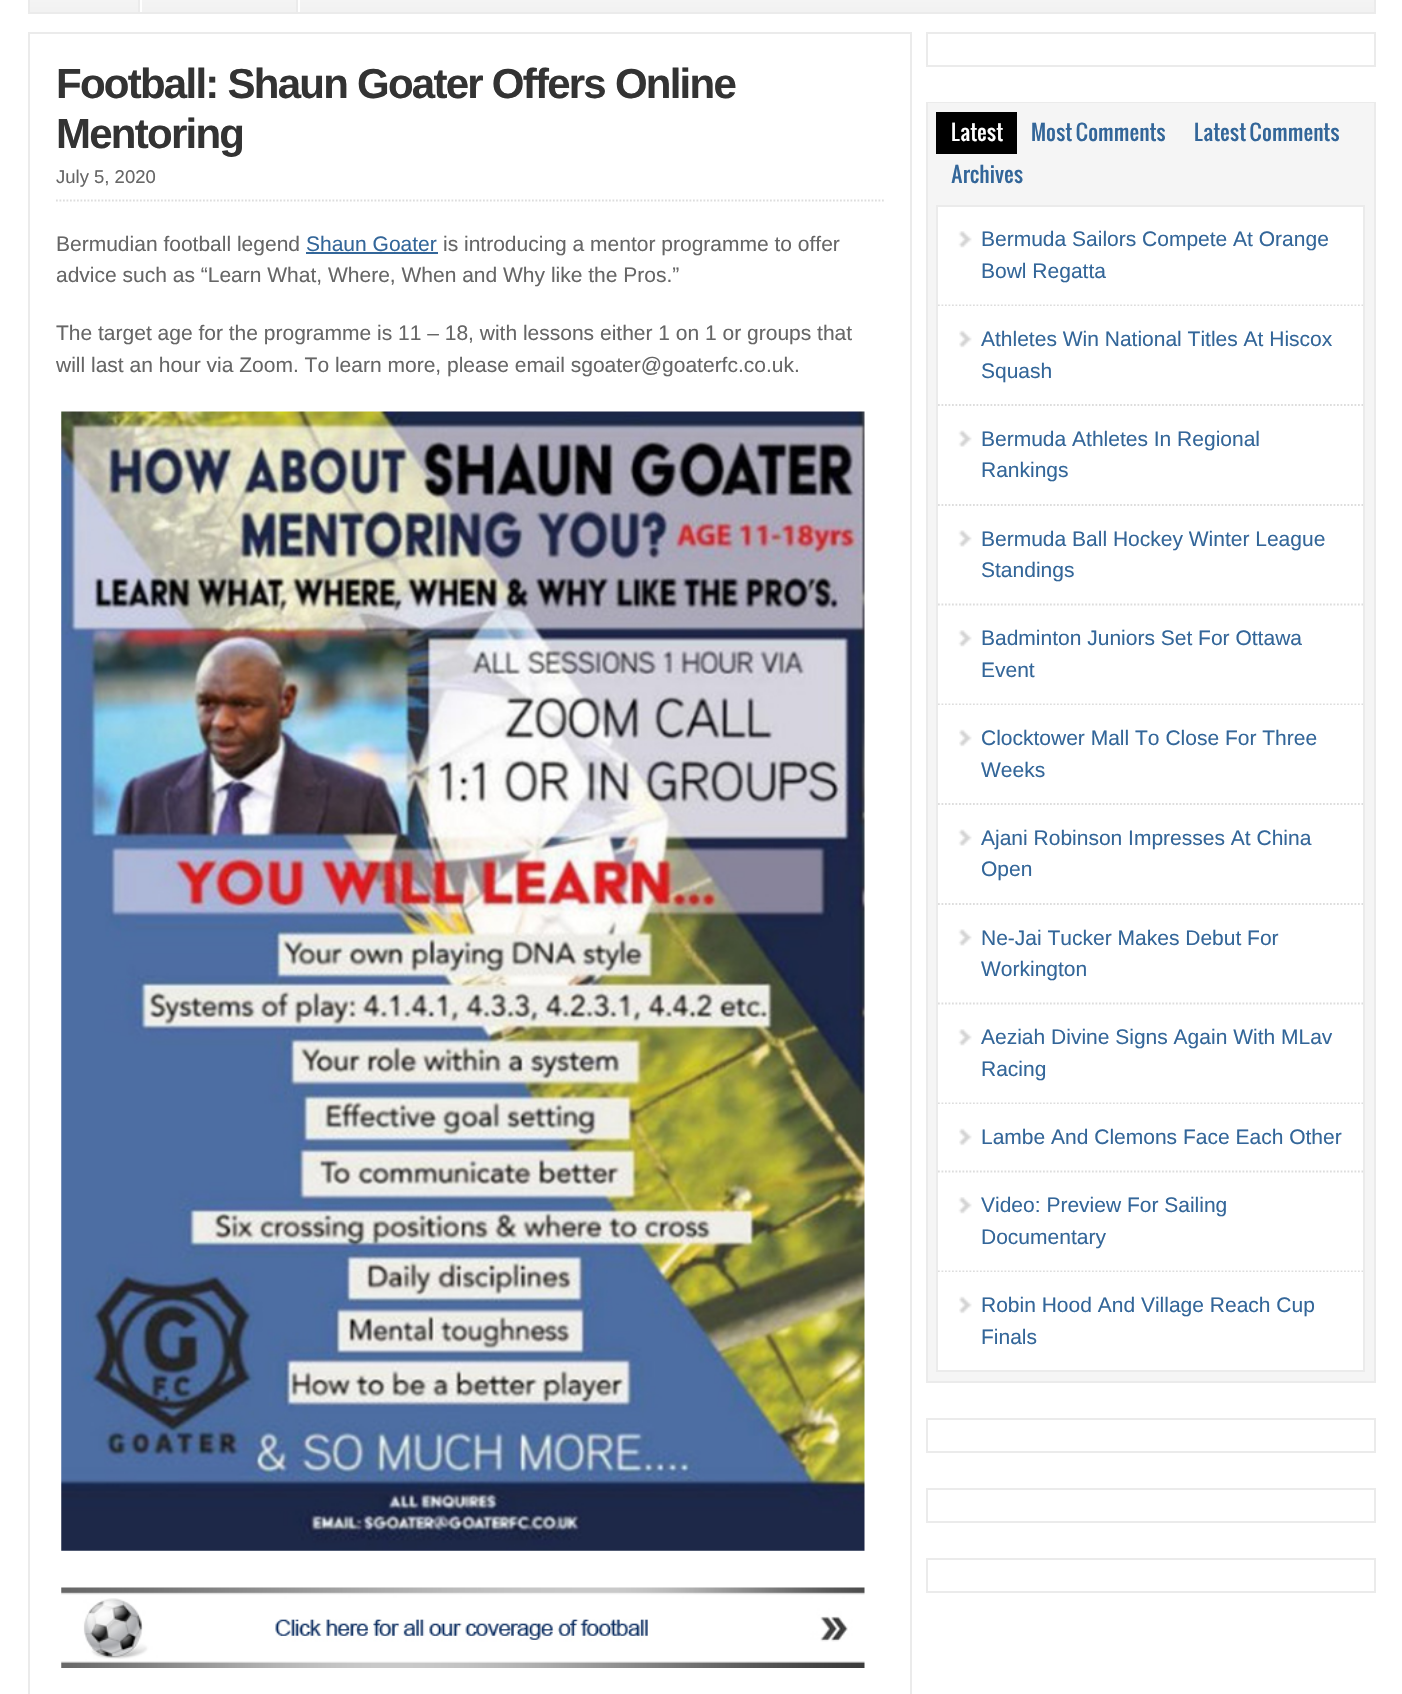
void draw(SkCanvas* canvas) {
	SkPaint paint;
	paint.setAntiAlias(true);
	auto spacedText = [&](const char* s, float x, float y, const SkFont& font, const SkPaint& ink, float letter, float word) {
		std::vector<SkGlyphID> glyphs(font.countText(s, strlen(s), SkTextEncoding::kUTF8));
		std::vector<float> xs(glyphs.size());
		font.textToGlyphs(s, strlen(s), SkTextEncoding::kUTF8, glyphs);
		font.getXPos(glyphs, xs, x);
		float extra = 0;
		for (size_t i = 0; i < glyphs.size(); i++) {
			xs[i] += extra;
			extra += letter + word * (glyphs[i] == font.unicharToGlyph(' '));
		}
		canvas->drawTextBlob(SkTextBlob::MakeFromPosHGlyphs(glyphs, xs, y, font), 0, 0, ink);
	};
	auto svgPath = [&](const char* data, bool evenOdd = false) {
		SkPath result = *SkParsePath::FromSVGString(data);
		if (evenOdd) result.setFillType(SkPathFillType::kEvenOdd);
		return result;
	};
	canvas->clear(0xffffffff);
	canvas->drawImageRect(SkImages::DeferredFromEncodedData(SkData::MakeFromFileName("img1.png")), SkRect::MakeXYWH(30, 0, 1344, 12), SkSamplingOptions());
	paint.setStroke(true);
	paint.setStrokeWidth(2);
	paint.setColor(0xffebebeb);
	canvas->drawRect(SkRect::MakeXYWH(29, -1, 1346, 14), paint);
	paint.setStroke(false);
	paint.setColor(0xffffffff);
	canvas->drawRect(SkRect::MakeXYWH(140, 0, 2, 12), paint);
	paint.setColor(0xffebebeb);
	canvas->drawRect(SkRect::MakeXYWH(138, 0, 2, 12), paint);
	paint.setColor(0xffffffff);
	canvas->drawRect(SkRect::MakeXYWH(298, 0, 2, 12), paint);
	paint.setColor(0xffebebeb);
	canvas->drawRect(SkRect::MakeXYWH(296, 0, 2, 12), paint);
	paint.setStroke(true);
	canvas->drawRect(SkRect::MakeXYWH(29, 33, 882, 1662), paint);
	SkFont f1(fontMgr->matchFamilyStyle("Liberation Sans", SkFontStyle::Bold()), 42);
	f1.setSubpixel(true);
	paint.setStroke(false);
	paint.setColor(0xff333333);
	spacedText("Football: Shaun Goater Offers Online", 56, 98, f1, paint, -1.75, 0);
	spacedText("Mentoring", 56, 148, f1, paint, -1.75, 0);
	paint.setStroke(true);
	paint.setStrokeWidth(1.8);
	paint.setColor(0xffdddddd);
	paint.setPathEffect(SkDashPathEffect::Make({{1.75f, 1.75f}}, 0));
	canvas->drawPath(svgPath("M56 200.5H884"), paint);
	paint.setPathEffect(nullptr);
	SkFont f2(fontMgr->matchFamilyStyle("Liberation Sans", SkFontStyle::Normal()), 18.5);
	f2.setSubpixel(true);
	paint.setStroke(false);
	paint.setColor(0xff666666);
	canvas->drawString("July 5, 2020", 56, 183, f2, paint);
	SkFont f3(fontMgr->matchFamilyStyle("Liberation Sans", SkFontStyle::Normal()), 21);
	f3.setSubpixel(true);
	canvas->drawString("Bermudian football legend", 56, 251, f3, paint);
	paint.setColor(0xff336699);
	canvas->drawString("Shaun Goater", 306, 251, f3, paint);
	canvas->drawRect(SkRect::MakeXYWH(306, 252, 132, 2), paint);
	paint.setColor(0xff666666);
	canvas->drawString("is introducing a mentor programme to offer", 443, 251, f3, paint);
	canvas->drawString("advice such as “Learn What, Where, When and Why like the Pros.”", 56, 282, f3, paint);
	canvas->drawString("The target age for the programme is 11 – 18, with lessons either 1 on 1 or groups that", 56, 340, f3, paint);
	canvas->drawString("will last an hour via Zoom. To learn more, please email sgoater@goaterfc.co.uk.", 56, 372, f3, paint);
	canvas->drawImageRect(SkImages::DeferredFromEncodedData(SkData::MakeFromFileName("img2.png")), SkRect::MakeXYWH(61, 411, 804, 1140), SkSamplingOptions());
	canvas->drawImageRect(SkImages::DeferredFromEncodedData(SkData::MakeFromFileName("img3.png")), SkRect::MakeXYWH(61, 1587, 804, 81), SkSamplingOptions());
	paint.setStroke(true);
	paint.setStrokeWidth(2);
	paint.setColor(0xffebebeb);
	canvas->drawRect(SkRect::MakeXYWH(927, 33, 448, 33), paint);
	canvas->drawRect(SkRect::MakeXYWH(927, 103, 448, 1279), paint);
	paint.setStroke(false);
	paint.setColor(0xfff5f5f5);
	canvas->drawRect(SkRect::MakeXYWH(928, 103, 446, 1278), paint);
	paint.setColor(0xff000000);
	canvas->drawRect(SkRect::MakeXYWH(936, 112, 81, 42), paint);
	SkFont f4(fontMgr->matchFamilyStyle("Oswald", SkFontStyle::Normal()), 21);
	f4.setSubpixel(true);
	paint.setColor(0xffffffff);
	canvas->drawString("Latest", 951, 141, f4, paint);
	paint.setColor(0xff336699);
	canvas->drawString("Most Comments", 1031, 141, f4, paint);
	canvas->drawString("Latest Comments", 1194, 141, f4, paint);
	canvas->drawString("Archives", 951, 183, f4, paint);
	paint.setStroke(true);
	paint.setColor(0xffebebeb);
	canvas->drawRect(SkRect::MakeXYWH(937, 206, 427, 1165), paint);
	paint.setStroke(false);
	paint.setColor(0xffffffff);
	canvas->drawRect(SkRect::MakeXYWH(938, 207, 425, 99), paint);
	canvas->drawImageRect(SkImages::DeferredFromEncodedData(SkData::MakeFromFileName("img4.png")), SkRect::MakeXYWH(958, 231, 14, 17), SkSamplingOptions());
	paint.setStroke(true);
	paint.setStrokeWidth(1.8);
	paint.setColor(0xffdddddd);
	paint.setPathEffect(SkDashPathEffect::Make({{1.75f, 1.75f}}, 0));
	canvas->drawPath(svgPath("M938 305.5H1363"), paint);
	paint.setPathEffect(nullptr);
	paint.setStroke(false);
	paint.setColor(0xff336699);
	canvas->drawString("Bermuda Sailors Compete At Orange", 981, 246, f3, paint);
	canvas->drawString("Bowl Regatta", 981, 278, f3, paint);
	paint.setColor(0xffffffff);
	canvas->drawRect(SkRect::MakeXYWH(938, 306, 425, 399), paint);
	canvas->drawImageRect(SkImages::DeferredFromEncodedData(SkData::MakeFromFileName("img5.png")), SkRect::MakeXYWH(959, 330, 13, 18), SkSamplingOptions());
	paint.setStroke(true);
	paint.setColor(0xffdddddd);
	paint.setPathEffect(SkDashPathEffect::Make({{1.75f, 1.75f}}, 0));
	canvas->drawPath(svgPath("M938 405H1363"), paint);
	paint.setPathEffect(nullptr);
	paint.setStroke(false);
	paint.setColor(0xff336699);
	canvas->drawString("Athletes Win National Titles At Hiscox", 981, 346, f3, paint);
	canvas->drawString("Squash", 981, 378, f3, paint);
	canvas->drawImageRect(SkImages::DeferredFromEncodedData(SkData::MakeFromFileName("img6.png")), SkRect::MakeXYWH(958, 430, 14, 17), SkSamplingOptions());
	paint.setStroke(true);
	paint.setColor(0xffdddddd);
	paint.setPathEffect(SkDashPathEffect::Make({{1.75f, 1.75f}}, 0));
	canvas->drawPath(svgPath("M938 505H1363"), paint);
	paint.setPathEffect(nullptr);
	paint.setStroke(false);
	paint.setColor(0xff336699);
	canvas->drawString("Bermuda Athletes In Regional", 981, 446, f3, paint);
	canvas->drawString("Rankings", 981, 477, f3, paint);
	canvas->drawImageRect(SkImages::DeferredFromEncodedData(SkData::MakeFromFileName("img7.png")), SkRect::MakeXYWH(958, 530, 14, 17), SkSamplingOptions());
	paint.setStroke(true);
	paint.setColor(0xffdddddd);
	paint.setPathEffect(SkDashPathEffect::Make({{1.75f, 1.75f}}, 0));
	canvas->drawPath(svgPath("M938 604.5H1363"), paint);
	paint.setPathEffect(nullptr);
	paint.setStroke(false);
	paint.setColor(0xff336699);
	canvas->drawString("Bermuda Ball Hockey Winter League", 981, 546, f3, paint);
	canvas->drawString("Standings", 981, 577, f3, paint);
	canvas->drawImageRect(SkImages::DeferredFromEncodedData(SkData::MakeFromFileName("img4.png")), SkRect::MakeXYWH(958, 630, 14, 17), SkSamplingOptions());
	paint.setStroke(true);
	paint.setColor(0xffdddddd);
	paint.setPathEffect(SkDashPathEffect::Make({{1.75f, 1.75f}}, 0));
	canvas->drawPath(svgPath("M938 704.5H1363"), paint);
	paint.setPathEffect(nullptr);
	paint.setStroke(false);
	paint.setColor(0xff336699);
	canvas->drawString("Badminton Juniors Set For Ottawa", 981, 645, f3, paint);
	canvas->drawString("Event", 981, 677, f3, paint);
	paint.setColor(0xffffffff);
	canvas->drawRect(SkRect::MakeXYWH(938, 705, 425, 399), paint);
	canvas->drawImageRect(SkImages::DeferredFromEncodedData(SkData::MakeFromFileName("img5.png")), SkRect::MakeXYWH(959, 729, 13, 18), SkSamplingOptions());
	paint.setStroke(true);
	paint.setColor(0xffdddddd);
	paint.setPathEffect(SkDashPathEffect::Make({{1.75f, 1.75f}}, 0));
	canvas->drawPath(svgPath("M938 804H1363"), paint);
	paint.setPathEffect(nullptr);
	paint.setStroke(false);
	paint.setColor(0xff336699);
	canvas->drawString("Clocktower Mall To Close For Three", 981, 745, f3, paint);
	canvas->drawString("Weeks", 981, 777, f3, paint);
	canvas->drawImageRect(SkImages::DeferredFromEncodedData(SkData::MakeFromFileName("img6.png")), SkRect::MakeXYWH(958, 829, 14, 17), SkSamplingOptions());
	paint.setStroke(true);
	paint.setColor(0xffdddddd);
	paint.setPathEffect(SkDashPathEffect::Make({{1.75f, 1.75f}}, 0));
	canvas->drawPath(svgPath("M938 904H1363"), paint);
	paint.setPathEffect(nullptr);
	paint.setStroke(false);
	paint.setColor(0xff336699);
	canvas->drawString("Ajani Robinson Impresses At China", 981, 845, f3, paint);
	canvas->drawString("Open", 981, 876, f3, paint);
	canvas->drawImageRect(SkImages::DeferredFromEncodedData(SkData::MakeFromFileName("img7.png")), SkRect::MakeXYWH(958, 929, 14, 17), SkSamplingOptions());
	paint.setStroke(true);
	paint.setColor(0xffdddddd);
	paint.setPathEffect(SkDashPathEffect::Make({{1.75f, 1.75f}}, 0));
	canvas->drawPath(svgPath("M938 1003.5H1363"), paint);
	paint.setPathEffect(nullptr);
	paint.setStroke(false);
	paint.setColor(0xff336699);
	canvas->drawString("Ne-Jai Tucker Makes Debut For", 981, 945, f3, paint);
	canvas->drawString("Workington", 981, 976, f3, paint);
	canvas->drawImageRect(SkImages::DeferredFromEncodedData(SkData::MakeFromFileName("img4.png")), SkRect::MakeXYWH(958, 1029, 14, 17), SkSamplingOptions());
	paint.setStroke(true);
	paint.setColor(0xffdddddd);
	paint.setPathEffect(SkDashPathEffect::Make({{1.75f, 1.75f}}, 0));
	canvas->drawPath(svgPath("M938 1103.5H1363"), paint);
	paint.setPathEffect(nullptr);
	paint.setStroke(false);
	paint.setColor(0xff336699);
	canvas->drawString("Aeziah Divine Signs Again With MLav", 981, 1044, f3, paint);
	canvas->drawString("Racing", 981, 1076, f3, paint);
	paint.setColor(0xffffffff);
	canvas->drawRect(SkRect::MakeXYWH(938, 1104, 425, 168), paint);
	canvas->drawImageRect(SkImages::DeferredFromEncodedData(SkData::MakeFromFileName("img5.png")), SkRect::MakeXYWH(959, 1128, 13, 18), SkSamplingOptions());
	paint.setStroke(true);
	paint.setColor(0xffdddddd);
	paint.setPathEffect(SkDashPathEffect::Make({{1.75f, 1.75f}}, 0));
	canvas->drawPath(svgPath("M938 1171.5H1363"), paint);
	paint.setPathEffect(nullptr);
	paint.setStroke(false);
	paint.setColor(0xff336699);
	canvas->drawString("Lambe And Clemons Face Each Other", 981, 1144, f3, paint);
	canvas->drawImageRect(SkImages::DeferredFromEncodedData(SkData::MakeFromFileName("img4.png")), SkRect::MakeXYWH(958, 1197, 14, 17), SkSamplingOptions());
	paint.setStroke(true);
	paint.setColor(0xffdddddd);
	paint.setPathEffect(SkDashPathEffect::Make({{1.75f, 1.75f}}, 0));
	canvas->drawPath(svgPath("M938 1271.5H1363"), paint);
	paint.setPathEffect(nullptr);
	paint.setStroke(false);
	paint.setColor(0xff336699);
	canvas->drawString("Video: Preview For Sailing", 981, 1212, f3, paint);
	canvas->drawString("Documentary", 981, 1244, f3, paint);
	paint.setColor(0xffffffff);
	canvas->drawRect(SkRect::MakeXYWH(938, 1272, 425, 98), paint);
	canvas->drawImageRect(SkImages::DeferredFromEncodedData(SkData::MakeFromFileName("img5.png")), SkRect::MakeXYWH(959, 1296, 13, 18), SkSamplingOptions());
	paint.setColor(0xff336699);
	canvas->drawString("Robin Hood And Village Reach Cup", 981, 1312, f3, paint);
	canvas->drawString("Finals", 981, 1344, f3, paint);
	paint.setStroke(true);
	paint.setStrokeWidth(2);
	paint.setColor(0xffebebeb);
	canvas->drawRect(SkRect::MakeXYWH(927, 1419, 448, 33), paint);
	canvas->drawRect(SkRect::MakeXYWH(927, 1489, 448, 33), paint);
	canvas->drawRect(SkRect::MakeXYWH(927, 1559, 448, 33), paint);
}
